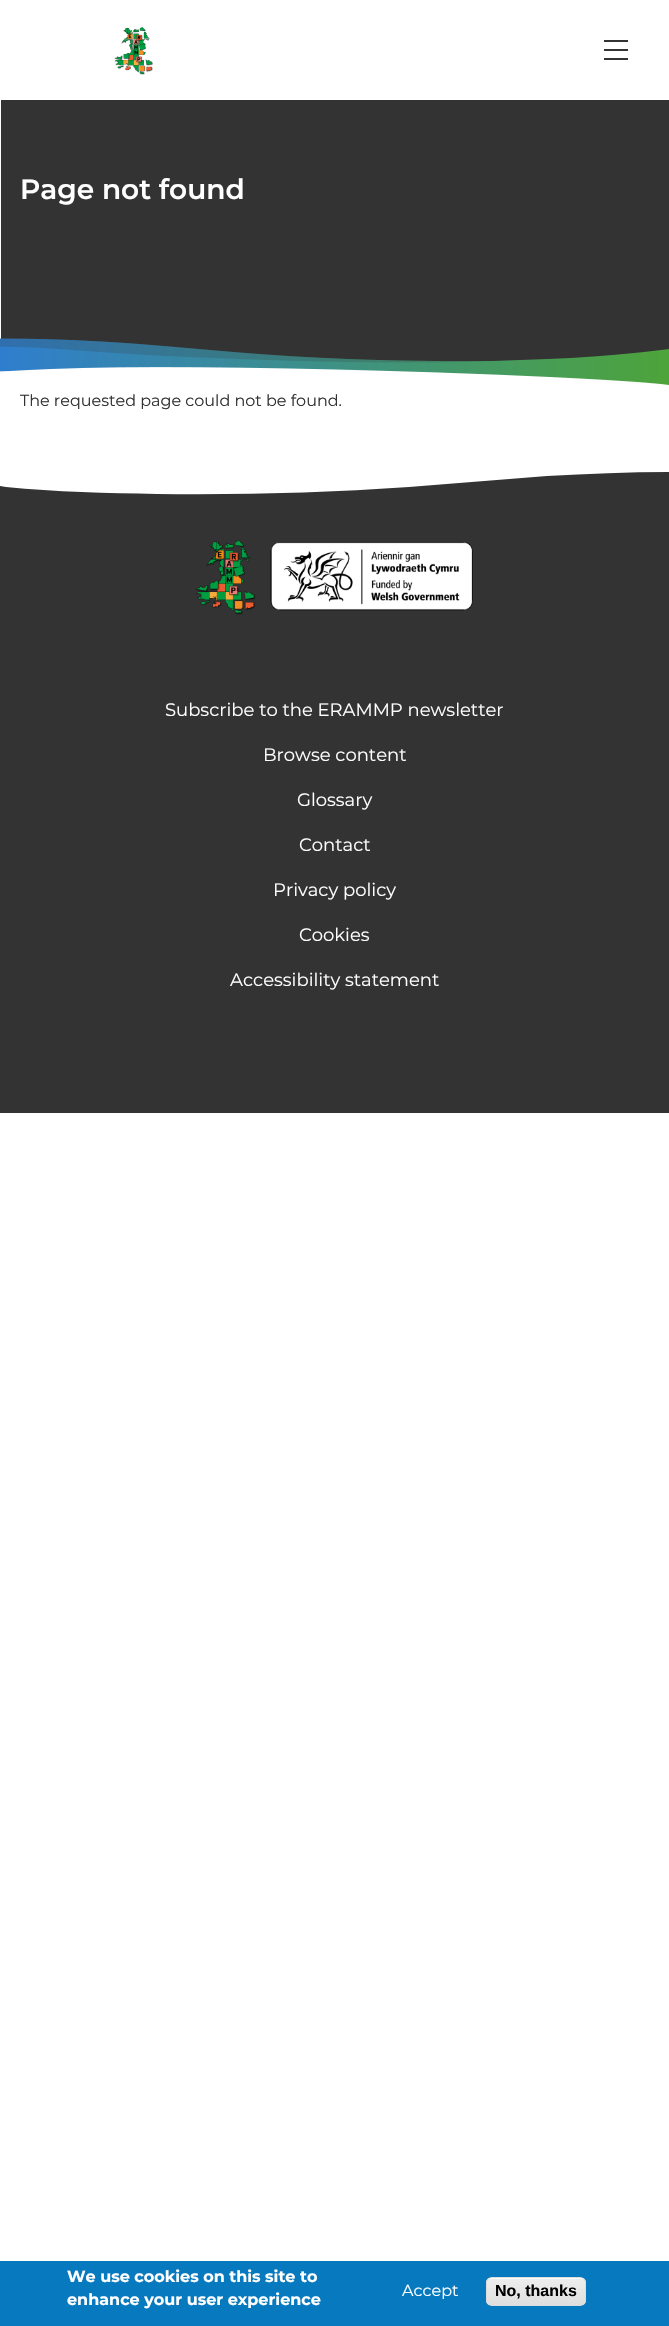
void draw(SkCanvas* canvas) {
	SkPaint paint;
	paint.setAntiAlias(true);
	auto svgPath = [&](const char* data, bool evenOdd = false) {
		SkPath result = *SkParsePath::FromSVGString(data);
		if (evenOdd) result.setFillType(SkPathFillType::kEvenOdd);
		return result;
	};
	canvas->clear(0xffffffff);
	canvas->drawImageRect(SkImages::DeferredFromEncodedData(SkData::MakeFromFileName("img1.png")), SkRect::MakeXYWH(114, 27, 39, 48), SkSamplingOptions());
	paint.setColor(0xff333333);
	canvas->drawRect(SkRect::MakeXYWH(604, 40, 24, 2), paint);
	canvas->drawRect(SkRect::MakeXYWH(604, 49, 24, 2), paint);
	canvas->drawRect(SkRect::MakeXYWH(604, 58, 24, 2), paint);
	canvas->drawRect(SkRect::MakeXYWH(1, 100, 668, 262), paint);
	SkFont f1(fontMgr->matchFamilyStyle("Montserrat", SkFontStyle(600, SkFontStyle::kNormal_Width, SkFontStyle::kUpright_Slant)), 28);
	f1.setSubpixel(true);
	paint.setColor(0xffffffff);
	canvas->drawString("Page not found", 20, 199, f1, paint);
	canvas->drawImageRect(SkImages::DeferredFromEncodedData(SkData::MakeFromFileName("img2.png")), SkRect::MakeXYWH(0, 338, 669, 52), SkSamplingOptions());
	SkFont f2(fontMgr->matchFamilyStyle("Montserrat", SkFontStyle::Normal()), 16);
	f2.setSubpixel(true);
	paint.setColor(0xff333333);
	canvas->drawString("The requested page could not be found.", 20, 406, f2, paint);
	canvas->drawRect(SkRect::MakeXYWH(0, 505, 669, 608), paint);
	canvas->save();
	canvas->clipRect(SkRect::MakeXYWH(0, 472, 669, 33));
	canvas->drawPath(svgPath("M6 487C56 492 107 493 157 494C241 495 325 493 409 487L547 476C588 474 628 472 669 472V518H0V486Z"), paint);
	canvas->restore();
	canvas->drawImageRect(SkImages::DeferredFromEncodedData(SkData::MakeFromFileName("img3.png")), SkRect::MakeXYWH(196, 540, 277, 75), SkSamplingOptions());
	SkFont f3(fontMgr->matchFamilyStyle("Montserrat", SkFontStyle::Normal()), 18);
	f3.setSubpixel(true);
	paint.setColor(0xffffffff);
	canvas->drawString("Subscribe to the ERAMMP newsletter", 165, 716, f3, paint);
	canvas->drawString("Browse content", 263, 761, f3, paint);
	canvas->drawString("Glossary", 297, 806, f3, paint);
	canvas->drawString("Contact", 299, 851, f3, paint);
	canvas->drawString("Privacy policy", 273, 896, f3, paint);
	canvas->drawString("Cookies", 299, 941, f3, paint);
	canvas->drawString("Accessibility statement", 230, 986, f3, paint);
	paint.setColor(0xff0779bf);
	canvas->drawRect(SkRect::MakeXYWH(0, 2261, 669, 65), paint);
	SkFont f4(fontMgr->matchFamilyStyle("Montserrat", SkFontStyle::Bold()), 16);
	f4.setSubpixel(true);
	paint.setColor(0xffffffff);
	canvas->drawString("We use cookies on this site to", 67, 2282, f4, paint);
	canvas->drawString("enhance your user experience", 67, 2305, f4, paint);
	canvas->drawString("Accept", 402, 2296, f2, paint);
	canvas->save();
	canvas->clipPath(svgPath("M492 2277H580C583.5 2277 586 2279.5 586 2283V2300C586 2303.5 583.5 2306 580 2306H492C488.5 2306 486 2303.5 486 2300V2283C486 2279.5 488.5 2277 492 2277Z"), true);
	{
		const SkColor colors[] = {0xffededed, 0xffdfdfdf};
		const float stops[] = {0.05, 1};
		const SkPoint ends[] = {{536, 2278}, {536, 2305}};
		paint.setShader(SkGradientShader::MakeLinear(ends, colors, stops, 2, SkTileMode::kClamp));
		paint.setAlpha(255);
	}
	canvas->drawRect(SkRect::MakeXYWH(486, 2278, 100, 27), paint);
	canvas->restore();
	paint.setShader(nullptr);
	paint.setColor(0xffffffff);
	canvas->drawPath(svgPath("M492 2279H580C583 2279 585 2281 585 2284C585 2274 571 2278 565 2278H507C501 2278 487 2274 487 2284C487 2281 489 2279 492 2279Z"), paint);
	paint.setStroke(true);
	paint.setStrokeWidth(1);
	paint.setColor(0xffdcdcdc);
	canvas->drawRoundRect(SkRect::MakeXYWH(486.5, 2277.5, 99, 28), 5.5, 5.5, paint);
	SkFont f5(fontMgr->matchFamilyStyle("Liberation Sans", SkFontStyle::Bold()), 16);
	f5.setSubpixel(true);
	paint.setStroke(false);
	paint.setColor(0xff000000);
	canvas->drawString("No, thanks", 495, 2296, f5, paint);
}
